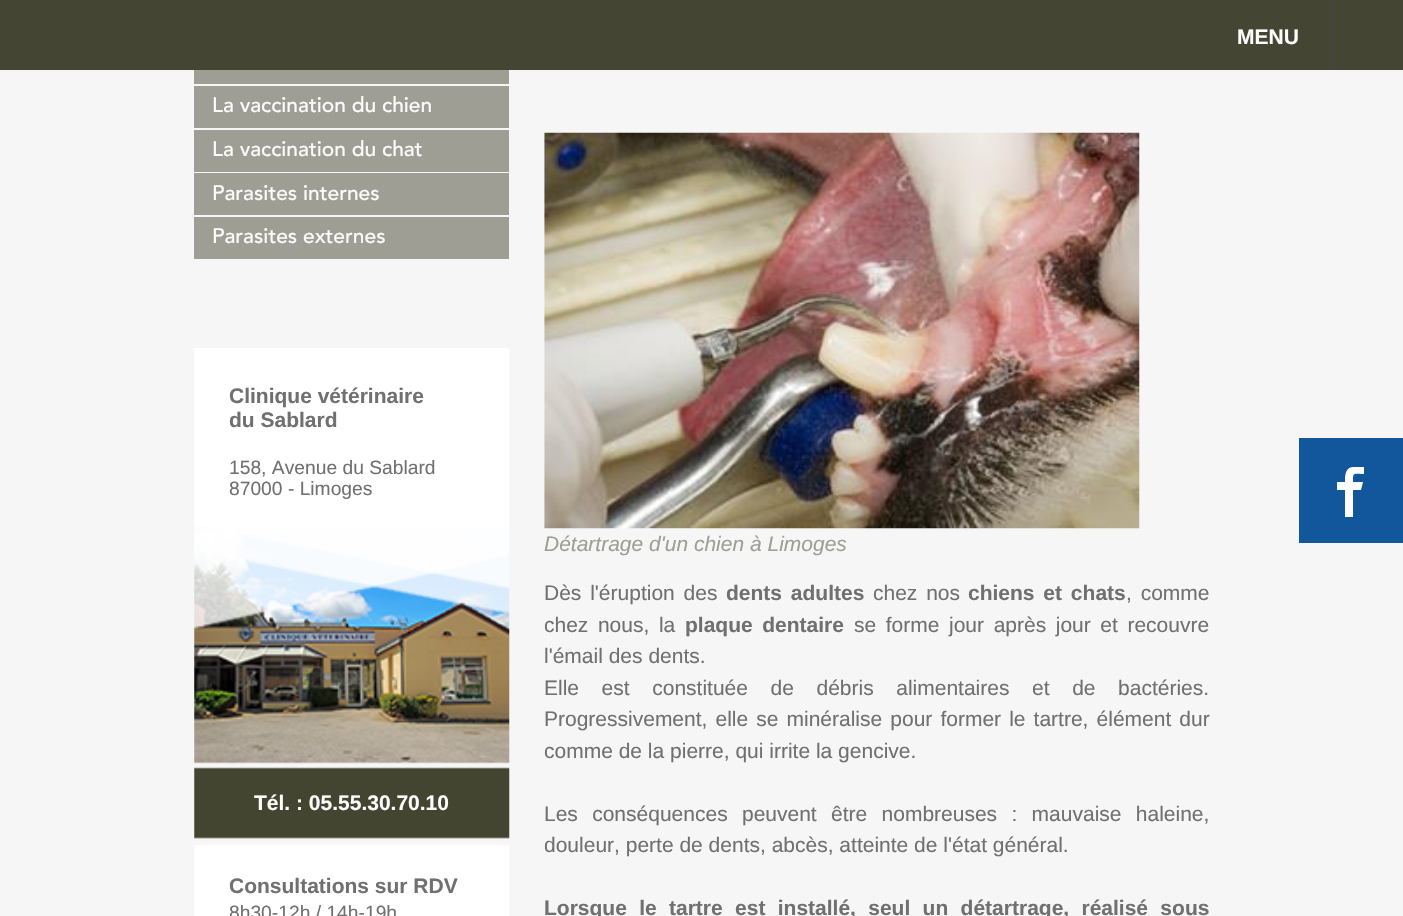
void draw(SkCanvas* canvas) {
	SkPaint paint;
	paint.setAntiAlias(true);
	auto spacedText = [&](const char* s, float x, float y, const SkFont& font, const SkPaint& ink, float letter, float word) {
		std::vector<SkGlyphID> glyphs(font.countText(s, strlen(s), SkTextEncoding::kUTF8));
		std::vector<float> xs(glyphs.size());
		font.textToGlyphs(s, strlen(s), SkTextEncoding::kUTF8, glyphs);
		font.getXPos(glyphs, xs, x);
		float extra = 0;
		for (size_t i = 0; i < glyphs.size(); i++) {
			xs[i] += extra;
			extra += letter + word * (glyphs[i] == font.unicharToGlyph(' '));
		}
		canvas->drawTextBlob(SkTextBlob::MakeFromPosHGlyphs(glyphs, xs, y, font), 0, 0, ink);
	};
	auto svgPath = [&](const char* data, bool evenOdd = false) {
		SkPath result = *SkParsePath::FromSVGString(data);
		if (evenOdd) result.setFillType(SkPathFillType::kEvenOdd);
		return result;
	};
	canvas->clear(0xfff6f6f6);
	paint.setColor(0xff454533);
	canvas->drawRect(SkRect::MakeXYWH(0, 0, 1403, 70), paint);
	SkFont f1(fontMgr->matchFamilyStyle("Liberation Sans", SkFontStyle::Bold()), 21);
	f1.setSubpixel(true);
	paint.setColor(0xfffbfbfb);
	canvas->drawString("MENU", 1237, 44, f1, paint);
	paint.setColor(0xff444444);
	canvas->drawRect(SkRect::MakeXYWH(1332, 0, 2, 70), paint);
	paint.setColor(0xff9e9e95);
	canvas->drawRect(SkRect::MakeXYWH(194, 70, 315, 14), paint);
	canvas->drawRect(SkRect::MakeXYWH(194, 86, 315, 42), paint);
	SkFont f2(fontMgr->matchFamilyStyle("Avenir", SkFontStyle(500, SkFontStyle::kNormal_Width, SkFontStyle::kUpright_Slant)), 21);
	f2.setSubpixel(true);
	paint.setColor(0xfffbfbfb);
	canvas->drawString("La vaccination du chien", 212, 112, f2, paint);
	paint.setColor(0xff9e9e95);
	canvas->drawRect(SkRect::MakeXYWH(194, 130, 315, 42), paint);
	paint.setColor(0xfffbfbfb);
	canvas->drawString("La vaccination du chat", 212, 156, f2, paint);
	paint.setColor(0xff9e9e95);
	canvas->drawRect(SkRect::MakeXYWH(194, 173, 315, 42), paint);
	paint.setColor(0xfffbfbfb);
	canvas->drawString("Parasites internes", 212, 200, f2, paint);
	paint.setColor(0xff9e9e95);
	canvas->drawRect(SkRect::MakeXYWH(194, 217, 315, 42), paint);
	paint.setColor(0xfffbfbfb);
	canvas->drawString("Parasites externes", 212, 243, f2, paint);
	canvas->drawImageRect(SkImages::DeferredFromEncodedData(SkData::MakeFromFileName("img1.png")), SkRect::MakeXYWH(194, 348, 316, 568), SkSamplingOptions());
	paint.setColor(0xff707070);
	canvas->drawString("Clinique vétérinaire", 229, 403, f1, paint);
	canvas->drawString("du Sablard", 229, 427, f1, paint);
	SkFont f3(fontMgr->matchFamilyStyle("Liberation Sans", SkFontStyle::Normal()), 19.25);
	f3.setSubpixel(true);
	canvas->drawString("158, Avenue du Sablard", 229, 474, f3, paint);
	canvas->drawString("87000 - Limoges", 229, 495, f3, paint);
	paint.setColor(0xfffbfbfb);
	canvas->drawString("Tél. : 05.55.30.70.10", 254, 810, f1, paint);
	paint.setColor(0xff707070);
	canvas->drawString("Consultations sur RDV", 229, 893, f1, paint);
	canvas->drawString("8h30-12h / 14h-19h", 229, 919, f3, paint);
	canvas->drawImageRect(SkImages::DeferredFromEncodedData(SkData::MakeFromFileName("img2.png")), SkRect::MakeXYWH(544, 132, 596, 397), SkSamplingOptions());
	SkFont f4(fontMgr->matchFamilyStyle("Liberation Sans", SkFontStyle::Italic()), 21);
	f4.setSubpixel(true);
	paint.setColor(0xff9e9e95);
	canvas->drawString("Détartrage d'un chien à Limoges", 544, 551, f4, paint);
	SkFont f5(fontMgr->matchFamilyStyle("Liberation Sans", SkFontStyle::Normal()), 21);
	f5.setSubpixel(true);
	paint.setColor(0xff707070);
	spacedText("Dès l'éruption des", 544, 600, f5, paint, 0, 3);
	spacedText("dents adultes", 726, 600, f1, paint, 0, 3);
	spacedText("chez nos", 873, 600, f5, paint, 0, 3);
	spacedText("chiens et chats", 968, 600, f1, paint, 0, 3);
	spacedText(", comme", 1126, 600, f5, paint, 0, 3);
	spacedText("chez nous, la", 544, 632, f5, paint, 0, 3.75);
	spacedText("plaque dentaire", 685, 632, f1, paint, 0, 3.75);
	spacedText("se forme jour après jour et recouvre", 854, 632, f5, paint, 0, 3.75);
	canvas->drawString("l'émail des dents.", 544, 663, f5, paint);
	spacedText("Elle est constituée de débris alimentaires et de bactéries.", 544, 695, f5, paint, 0, 16.75);
	spacedText("Progressivement, elle se minéralise pour former le tartre, élément dur", 544, 726, f5, paint, 0, 2.25);
	canvas->drawString("comme de la pierre, qui irrite la gencive.", 544, 758, f5, paint);
	spacedText("Les conséquences peuvent être nombreuses : mauvaise haleine,", 544, 821, f5, paint, 0, 8.5);
	canvas->drawString("douleur, perte de dents, abcès, atteinte de l'état général.", 544, 852, f5, paint);
	spacedText("Lorsque le tartre est installé, seul un détartrage, réalisé sous", 544, 915, f1, paint, 0, 6.5);
	paint.setColor(0xff12569b);
	canvas->drawRect(SkRect::MakeXYWH(1299, 438, 104, 105), paint);
	paint.setColor(0xffffffff);
	canvas->drawPath(svgPath("M1354 467C1345 467 1345 475 1345 482H1337V490H1345V517H1353V490H1361L1363 482H1353C1353 472 1353 474 1364 474V467Z"), paint);
}
